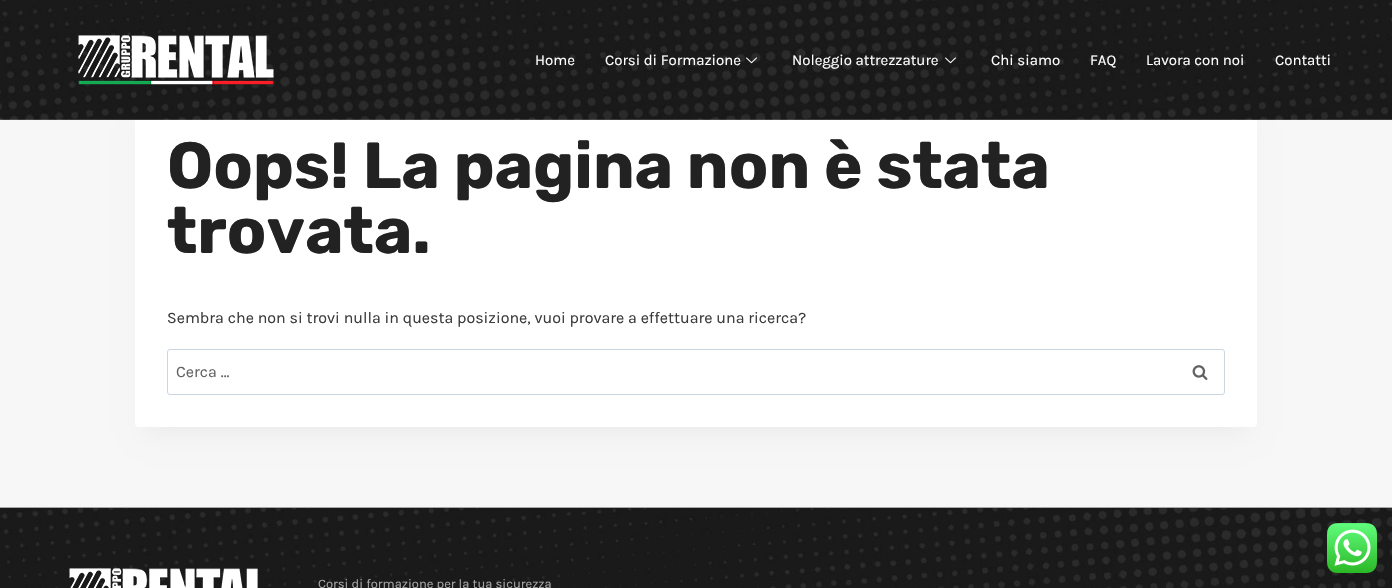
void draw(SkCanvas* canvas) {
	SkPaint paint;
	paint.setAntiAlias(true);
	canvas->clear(0xfff7f7f7);
	paint.setColor(0x0d000000);
	paint.setMaskFilter(SkMaskFilter::MakeBlur(kNormal_SkBlurStyle, 12.5));
	canvas->drawRect(SkRect::MakeXYWH(145, 126, 1102, 306), paint);
	paint.setMaskFilter(nullptr);
	paint.setColor(0xffffffff);
	canvas->drawRoundRect(SkRect::MakeXYWH(135, 101, 1122, 326), 4, 4, paint);
	canvas->drawImageRect(SkImages::DeferredFromEncodedData(SkData::MakeFromFileName("img1.png")), SkRect::MakeXYWH(0, 0, 1392, 120), SkSamplingOptions());
	canvas->drawImageRect(SkImages::DeferredFromEncodedData(SkData::MakeFromFileName("img2.png")), SkRect::MakeXYWH(78, 35, 196, 50), SkSamplingOptions());
	SkFont f1(fontMgr->matchFamilyStyle("Karla", SkFontStyle::Normal()), 15);
	f1.setSubpixel(true);
	canvas->drawString("Home", 535, 65, f1, paint);
	canvas->drawString("Corsi di Formazione", 605, 65, f1, paint);
	canvas->drawImageRect(SkImages::DeferredFromEncodedData(SkData::MakeFromFileName("img3.png")), SkRect::MakeXYWH(746, 57, 11, 7), SkSamplingOptions());
	canvas->drawString("Noleggio attrezzature", 792, 65, f1, paint);
	canvas->drawImageRect(SkImages::DeferredFromEncodedData(SkData::MakeFromFileName("img4.png")), SkRect::MakeXYWH(945, 57, 11, 7), SkSamplingOptions());
	canvas->drawString("Chi siamo", 991, 65, f1, paint);
	canvas->drawString("FAQ", 1090, 65, f1, paint);
	canvas->drawString("Lavora con noi", 1146, 65, f1, paint);
	canvas->drawString("Contatti", 1275, 65, f1, paint);
	SkFont f2(fontMgr->matchFamilyStyle("Rubik", SkFontStyle::Bold()), 65);
	f2.setSubpixel(true);
	paint.setColor(0xff222222);
	canvas->drawString("Oops! La pagina non è stata", 167, 188, f2, paint);
	canvas->drawString("trovata.", 167, 253, f2, paint);
	SkFont f3(fontMgr->matchFamilyStyle("Karla", SkFontStyle::Normal()), 16);
	f3.setSubpixel(true);
	paint.setColor(0xff3b3b3b);
	canvas->drawString("Sembra che non si trovi nulla in questa posizione, vuoi provare a effettuare una ricerca?", 167, 323, f3, paint);
	paint.setStroke(true);
	paint.setStrokeWidth(1);
	paint.setColor(0xffcbd5e0);
	canvas->drawRoundRect(SkRect::MakeXYWH(167.5, 349.5, 1057, 45), 2.5, 2.5, paint);
	paint.setStroke(false);
	paint.setColor(0xff626262);
	canvas->drawString("Cerca …", 176, 377, f3, paint);
	canvas->drawImageRect(SkImages::DeferredFromEncodedData(SkData::MakeFromFileName("img5.png")), SkRect::MakeXYWH(1192, 365, 16, 15), SkSamplingOptions());
	canvas->drawImageRect(SkImages::DeferredFromEncodedData(SkData::MakeFromFileName("img6.png")), SkRect::MakeXYWH(0, 508, 1392, 80), SkSamplingOptions());
	paint.setColor(0xffa7a7a7);
	canvas->drawRect(SkRect::MakeXYWH(0, 507, 1392, 1), paint);
	canvas->drawImageRect(SkImages::DeferredFromEncodedData(SkData::MakeFromFileName("img7.png")), SkRect::MakeXYWH(69, 568, 189, 20), SkSamplingOptions());
	SkFont f4(fontMgr->matchFamilyStyle("Karla", SkFontStyle::Normal()), 13);
	f4.setSubpixel(true);
	canvas->drawString("Corsi di formazione per la tua sicurezza", 318, 588, f4, paint);
	canvas->drawImageRect(SkImages::DeferredFromEncodedData(SkData::MakeFromFileName("img8.png")), SkRect::MakeXYWH(1327, 523, 50, 50), SkSamplingOptions());
}
